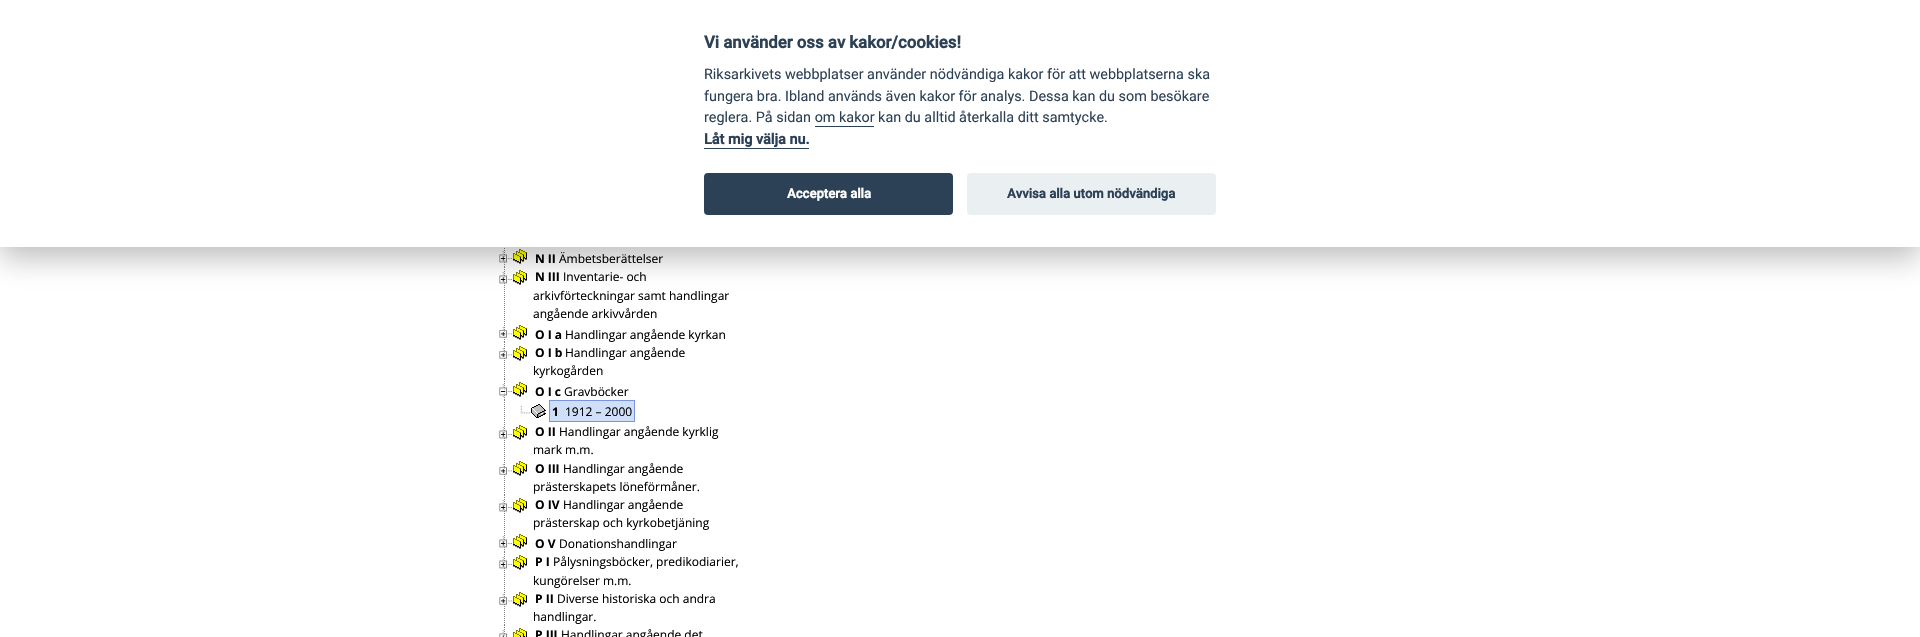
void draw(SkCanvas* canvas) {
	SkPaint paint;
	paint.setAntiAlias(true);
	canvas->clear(0xffffffff);
	canvas->drawImageRect(SkImages::DeferredFromEncodedData(SkData::MakeFromFileName("img1.png")), SkRect::MakeXYWH(504, 248, 1, 19), SkSamplingOptions());
	canvas->drawImageRect(SkImages::DeferredFromEncodedData(SkData::MakeFromFileName("img2.png")), SkRect::MakeXYWH(499, 251, 13, 12), SkSamplingOptions());
	canvas->drawImageRect(SkImages::DeferredFromEncodedData(SkData::MakeFromFileName("img3.png")), SkRect::MakeXYWH(513, 249, 14, 15), SkSamplingOptions());
	canvas->drawImageRect(SkImages::DeferredFromEncodedData(SkData::MakeFromFileName("img4.png")), SkRect::MakeXYWH(504, 267, 1, 53), SkSamplingOptions());
	canvas->drawImageRect(SkImages::DeferredFromEncodedData(SkData::MakeFromFileName("img2.png")), SkRect::MakeXYWH(499, 272, 13, 12), SkSamplingOptions());
	canvas->drawImageRect(SkImages::DeferredFromEncodedData(SkData::MakeFromFileName("img3.png")), SkRect::MakeXYWH(513, 270, 14, 15), SkSamplingOptions());
	paint.setColor(0x47020203);
	paint.setMaskFilter(SkMaskFilter::MakeBlur(kNormal_SkBlurStyle, 15));
	canvas->drawRect(SkRect::MakeXYWH(0, 10, 1920, 247), paint);
	paint.setMaskFilter(nullptr);
	paint.setColor(0xffffffff);
	canvas->drawRect(SkRect::MakeXYWH(0, 0, 1920, 247), paint);
	SkFont f1(fontMgr->matchFamilyStyle("Roboto", SkFontStyle::Bold()), 16.75);
	f1.setSubpixel(true);
	paint.setColor(0xff2d4156);
	canvas->drawString("Vi använder oss av kakor/cookies!", 704, 48, f1, paint);
	SkFont f2(fontMgr->matchFamilyStyle("Roboto", SkFontStyle::Normal()), 14.4);
	f2.setSubpixel(true);
	canvas->drawString("Riksarkivets webbplatser använder nödvändiga kakor för att webbplatserna ska", 704, 79, f2, paint);
	canvas->drawString("fungera bra. Ibland används även kakor för analys. Dessa kan du som besökare", 704, 101, f2, paint);
	canvas->drawString("reglera. På sidan om kakor kan du alltid återkalla ditt samtycke.", 704, 122, f2, paint);
	canvas->drawRect(SkRect::MakeXYWH(815, 126, 59, 1), paint);
	SkFont f3(fontMgr->matchFamilyStyle("Roboto", SkFontStyle::Bold()), 14.4);
	f3.setSubpixel(true);
	canvas->drawString("Låt mig välja nu.", 704, 144, f3, paint);
	canvas->drawRect(SkRect::MakeXYWH(704, 148, 105, 1), paint);
	canvas->drawRoundRect(SkRect::MakeXYWH(704, 173, 249, 42), 4, 4, paint);
	SkFont f4(fontMgr->matchFamilyStyle("Roboto", SkFontStyle::Bold()), 13.1);
	f4.setSubpixel(true);
	paint.setColor(0xffffffff);
	canvas->drawString("Acceptera alla", 787, 198, f4, paint);
	paint.setColor(0xffeaeff2);
	canvas->drawRoundRect(SkRect::MakeXYWH(967, 173, 249, 42), 4, 4, paint);
	paint.setColor(0xff2d4156);
	canvas->drawString("Avvisa alla utom nödvändiga", 1007, 198, f4, paint);
	SkFont f5(fontMgr->matchFamilyStyle("Open Sans", SkFontStyle::Bold()), 12);
	f5.setSubpixel(true);
	paint.setColor(0xff000000);
	canvas->drawString("N II", 535, 263, f5, paint);
	SkFont f6(fontMgr->matchFamilyStyle("Open Sans", SkFontStyle::Normal()), 12);
	f6.setSubpixel(true);
	canvas->drawString("Ämbetsberättelser", 559, 263, f6, paint);
	canvas->drawString("N III", 535, 281, f5, paint);
	canvas->drawString("Inventarie- och", 563, 281, f6, paint);
	canvas->drawString("arkivförteckningar samt handlingar", 533, 300, f6, paint);
	canvas->drawString("angående arkivvården", 533, 318, f6, paint);
	canvas->drawImageRect(SkImages::DeferredFromEncodedData(SkData::MakeFromFileName("img5.png")), SkRect::MakeXYWH(504, 321, 1, 21), SkSamplingOptions());
	canvas->drawImageRect(SkImages::DeferredFromEncodedData(SkData::MakeFromFileName("img6.png")), SkRect::MakeXYWH(499, 327, 13, 11), SkSamplingOptions());
	canvas->drawImageRect(SkImages::DeferredFromEncodedData(SkData::MakeFromFileName("img3.png")), SkRect::MakeXYWH(513, 325, 14, 15), SkSamplingOptions());
	canvas->drawString("O I a", 535, 339, f5, paint);
	canvas->drawString("Handlingar angående kyrkan", 565, 339, f6, paint);
	canvas->drawImageRect(SkImages::DeferredFromEncodedData(SkData::MakeFromFileName("img7.png")), SkRect::MakeXYWH(504, 342, 1, 37), SkSamplingOptions());
	canvas->drawImageRect(SkImages::DeferredFromEncodedData(SkData::MakeFromFileName("img6.png")), SkRect::MakeXYWH(499, 348, 13, 11), SkSamplingOptions());
	canvas->drawImageRect(SkImages::DeferredFromEncodedData(SkData::MakeFromFileName("img3.png")), SkRect::MakeXYWH(513, 346, 14, 15), SkSamplingOptions());
	canvas->drawString("O I b", 535, 357, f5, paint);
	canvas->drawString("Handlingar angående", 565, 357, f6, paint);
	canvas->drawString("kyrkogården", 533, 375, f6, paint);
	canvas->drawImageRect(SkImages::DeferredFromEncodedData(SkData::MakeFromFileName("img5.png")), SkRect::MakeXYWH(504, 379, 1, 21), SkSamplingOptions());
	canvas->drawImageRect(SkImages::DeferredFromEncodedData(SkData::MakeFromFileName("img8.png")), SkRect::MakeXYWH(499, 384, 13, 14), SkSamplingOptions());
	canvas->drawImageRect(SkImages::DeferredFromEncodedData(SkData::MakeFromFileName("img3.png")), SkRect::MakeXYWH(513, 382, 14, 15), SkSamplingOptions());
	canvas->drawString("O I c", 535, 396, f5, paint);
	canvas->drawString("Gravböcker", 564, 396, f6, paint);
	canvas->drawImageRect(SkImages::DeferredFromEncodedData(SkData::MakeFromFileName("img5.png")), SkRect::MakeXYWH(504, 400, 1, 21), SkSamplingOptions());
	canvas->drawImageRect(SkImages::DeferredFromEncodedData(SkData::MakeFromFileName("img9.png")), SkRect::MakeXYWH(520, 406, 10, 8), SkSamplingOptions());
	canvas->drawImageRect(SkImages::DeferredFromEncodedData(SkData::MakeFromFileName("img10.png")), SkRect::MakeXYWH(531, 404, 15, 14), SkSamplingOptions());
	paint.setColor(0xffcfdff9);
	canvas->drawRect(SkRect::MakeXYWH(550, 401, 84, 20), paint);
	paint.setColor(0xff7a94e0);
	canvas->drawRect(SkRect::MakeXYWH(549, 400, 86, 1), paint);
	canvas->drawRect(SkRect::MakeXYWH(634, 400, 1, 22), paint);
	canvas->drawRect(SkRect::MakeXYWH(549, 421, 86, 1), paint);
	canvas->drawRect(SkRect::MakeXYWH(549, 400, 1, 22), paint);
	paint.setColor(0xff000000);
	canvas->drawString("1", 552, 416, f5, paint);
	canvas->drawString("1912 – 2000", 565, 416, f6, paint);
	canvas->drawImageRect(SkImages::DeferredFromEncodedData(SkData::MakeFromFileName("img11.png")), SkRect::MakeXYWH(504, 422, 1, 35), SkSamplingOptions());
	canvas->drawImageRect(SkImages::DeferredFromEncodedData(SkData::MakeFromFileName("img2.png")), SkRect::MakeXYWH(499, 427, 13, 12), SkSamplingOptions());
	canvas->drawImageRect(SkImages::DeferredFromEncodedData(SkData::MakeFromFileName("img3.png")), SkRect::MakeXYWH(513, 425, 14, 15), SkSamplingOptions());
	canvas->drawString("O II", 535, 436, f5, paint);
	canvas->drawString("Handlingar angående kyrklig", 559, 436, f6, paint);
	canvas->drawString("mark m.m.", 533, 454, f6, paint);
	canvas->drawImageRect(SkImages::DeferredFromEncodedData(SkData::MakeFromFileName("img7.png")), SkRect::MakeXYWH(504, 458, 1, 37), SkSamplingOptions());
	canvas->drawImageRect(SkImages::DeferredFromEncodedData(SkData::MakeFromFileName("img6.png")), SkRect::MakeXYWH(499, 464, 13, 11), SkSamplingOptions());
	canvas->drawImageRect(SkImages::DeferredFromEncodedData(SkData::MakeFromFileName("img3.png")), SkRect::MakeXYWH(513, 461, 14, 15), SkSamplingOptions());
	canvas->drawString("O III", 535, 473, f5, paint);
	canvas->drawString("Handlingar angående", 563, 473, f6, paint);
	canvas->drawString("prästerskapets löneförmåner.", 533, 491, f6, paint);
	canvas->drawImageRect(SkImages::DeferredFromEncodedData(SkData::MakeFromFileName("img11.png")), SkRect::MakeXYWH(504, 495, 1, 35), SkSamplingOptions());
	canvas->drawImageRect(SkImages::DeferredFromEncodedData(SkData::MakeFromFileName("img2.png")), SkRect::MakeXYWH(499, 500, 13, 12), SkSamplingOptions());
	canvas->drawImageRect(SkImages::DeferredFromEncodedData(SkData::MakeFromFileName("img3.png")), SkRect::MakeXYWH(513, 498, 14, 15), SkSamplingOptions());
	canvas->drawString("O IV", 535, 509, f5, paint);
	canvas->drawString("Handlingar angående", 563, 509, f6, paint);
	canvas->drawString("prästerskap och kyrkobetjäning", 533, 527, f6, paint);
	canvas->drawImageRect(SkImages::DeferredFromEncodedData(SkData::MakeFromFileName("img5.png")), SkRect::MakeXYWH(504, 531, 1, 21), SkSamplingOptions());
	canvas->drawImageRect(SkImages::DeferredFromEncodedData(SkData::MakeFromFileName("img2.png")), SkRect::MakeXYWH(499, 536, 13, 12), SkSamplingOptions());
	canvas->drawImageRect(SkImages::DeferredFromEncodedData(SkData::MakeFromFileName("img3.png")), SkRect::MakeXYWH(513, 534, 14, 15), SkSamplingOptions());
	canvas->drawString("O V", 535, 548, f5, paint);
	canvas->drawString("Donationshandlingar", 559, 548, f6, paint);
	canvas->drawImageRect(SkImages::DeferredFromEncodedData(SkData::MakeFromFileName("img11.png")), SkRect::MakeXYWH(504, 552, 1, 35), SkSamplingOptions());
	canvas->drawImageRect(SkImages::DeferredFromEncodedData(SkData::MakeFromFileName("img2.png")), SkRect::MakeXYWH(499, 557, 13, 12), SkSamplingOptions());
	canvas->drawImageRect(SkImages::DeferredFromEncodedData(SkData::MakeFromFileName("img3.png")), SkRect::MakeXYWH(513, 555, 14, 15), SkSamplingOptions());
	canvas->drawString("P I", 535, 566, f5, paint);
	canvas->drawString("Pålysningsböcker, predikodiarier,", 553, 566, f6, paint);
	canvas->drawString("kungörelser m.m.", 533, 585, f6, paint);
	canvas->drawImageRect(SkImages::DeferredFromEncodedData(SkData::MakeFromFileName("img7.png")), SkRect::MakeXYWH(504, 588, 1, 37), SkSamplingOptions());
	canvas->drawImageRect(SkImages::DeferredFromEncodedData(SkData::MakeFromFileName("img6.png")), SkRect::MakeXYWH(499, 594, 13, 11), SkSamplingOptions());
	canvas->drawImageRect(SkImages::DeferredFromEncodedData(SkData::MakeFromFileName("img3.png")), SkRect::MakeXYWH(513, 592, 14, 15), SkSamplingOptions());
	canvas->drawString("P II", 535, 603, f5, paint);
	canvas->drawString("Diverse historiska och andra", 557, 603, f6, paint);
	canvas->drawString("handlingar.", 533, 621, f6, paint);
	canvas->drawImageRect(SkImages::DeferredFromEncodedData(SkData::MakeFromFileName("img12.png")), SkRect::MakeXYWH(504, 625, 1, 11), SkSamplingOptions());
	canvas->drawImageRect(SkImages::DeferredFromEncodedData(SkData::MakeFromFileName("img13.png")), SkRect::MakeXYWH(499, 630, 8, 7), SkSamplingOptions());
	canvas->drawImageRect(SkImages::DeferredFromEncodedData(SkData::MakeFromFileName("img14.png")), SkRect::MakeXYWH(513, 628, 14, 9), SkSamplingOptions());
	canvas->drawString("P III", 535, 639, f5, paint);
	canvas->drawString("Handlingar angående det", 561, 639, f6, paint);
}
